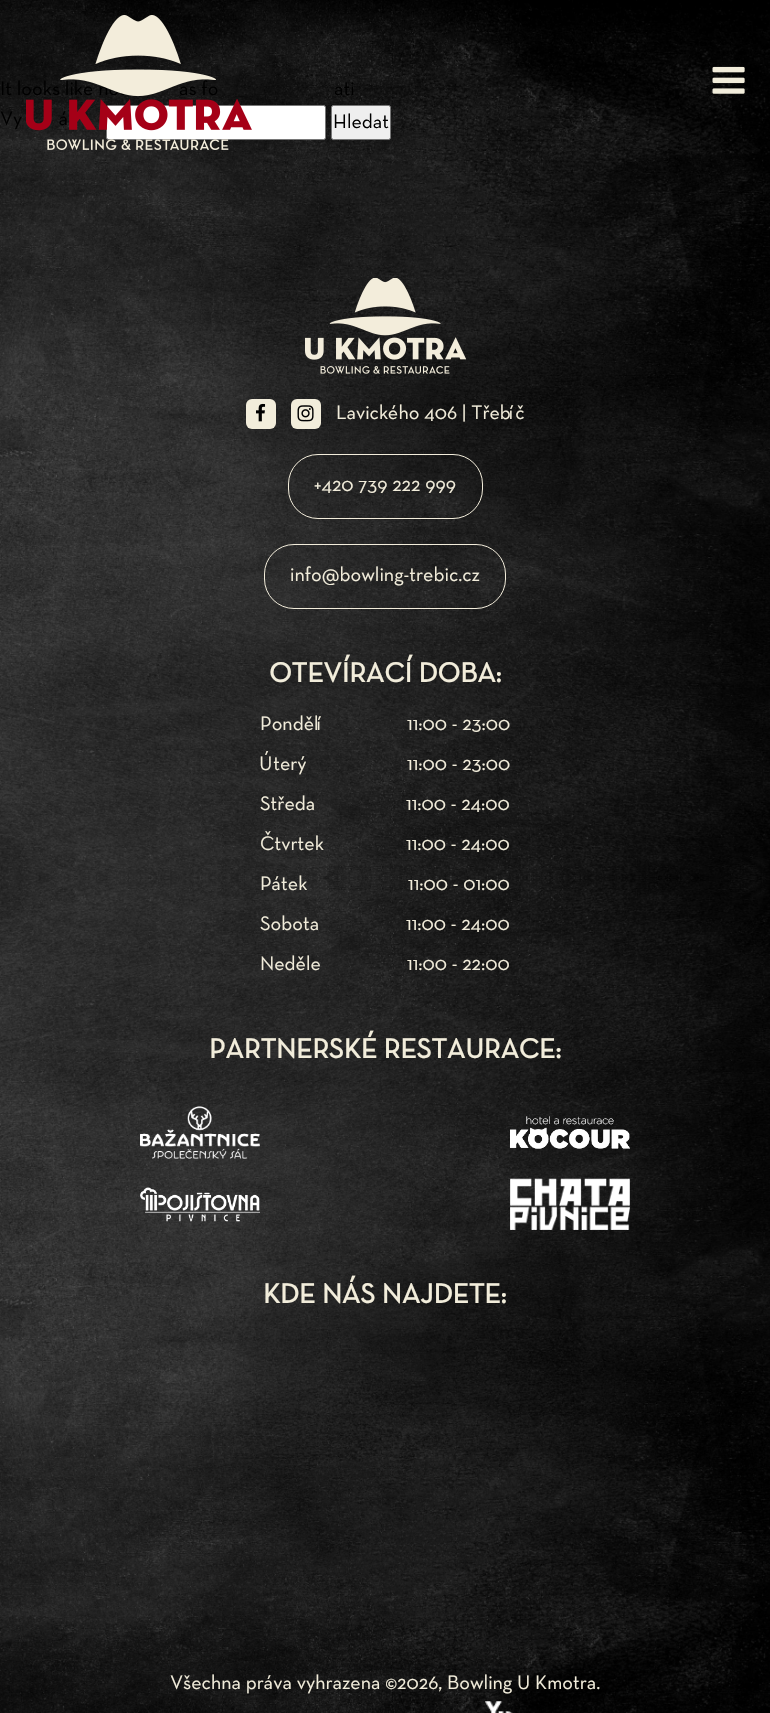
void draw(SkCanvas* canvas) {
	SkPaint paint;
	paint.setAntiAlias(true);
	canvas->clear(0xffffffff);
	canvas->drawImageRect(SkImages::DeferredFromEncodedData(SkData::MakeFromFileName("img1.png")), SkRect::MakeXYWH(0, 0, 770, 1713), SkSamplingOptions());
	SkFont f1(fontMgr->matchFamilyStyle("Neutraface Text", SkFontStyle::Normal()), 20);
	f1.setSubpixel(true);
	paint.setColor(0xff000000);
	canvas->drawString("It looks like not", 0, 95, f1, paint);
	canvas->drawString("as fo", 179, 95, f1, paint);
	canvas->drawString("á", 59, 125, f1, paint);
	paint.setColor(0xffffffff);
	canvas->drawRoundRect(SkRect::MakeXYWH(106.5, 105.5, 219, 34), 2, 2, paint);
	paint.setStroke(true);
	paint.setStrokeWidth(1);
	paint.setColor(0xff767676);
	canvas->drawRoundRect(SkRect::MakeXYWH(106.5, 105.5, 219, 34), 2, 2, paint);
	canvas->drawImageRect(SkImages::DeferredFromEncodedData(SkData::MakeFromFileName("img2.png")), SkRect::MakeXYWH(26, 15, 226, 135), SkSamplingOptions());
	canvas->drawImageRect(SkImages::DeferredFromEncodedData(SkData::MakeFromFileName("img3.png")), SkRect::MakeXYWH(712, 66, 33, 28), SkSamplingOptions());
	paint.setStroke(false);
	paint.setColor(0xff000000);
	canvas->drawString("ati", 334, 95, f1, paint);
	canvas->drawString("Vy", 0, 125, f1, paint);
	paint.setColor(0xffefefef);
	canvas->drawRoundRect(SkRect::MakeXYWH(331.5, 105.5, 59, 34), 2, 2, paint);
	paint.setStroke(true);
	paint.setColor(0xff767676);
	canvas->drawRoundRect(SkRect::MakeXYWH(331.5, 105.5, 59, 34), 2, 2, paint);
	paint.setStroke(false);
	paint.setColor(0xff000000);
	canvas->drawString("Hledat", 333, 128, f1, paint);
	canvas->drawImageRect(SkImages::DeferredFromEncodedData(SkData::MakeFromFileName("img4.png")), SkRect::MakeXYWH(305, 278, 161, 96), SkSamplingOptions());
	paint.setColor(0xfff2eddb);
	canvas->drawRoundRect(SkRect::MakeXYWH(246, 399, 30, 30), 6, 6, paint);
	canvas->drawImageRect(SkImages::DeferredFromEncodedData(SkData::MakeFromFileName("img5.png")), SkRect::MakeXYWH(256, 403, 10, 19), SkSamplingOptions());
	canvas->drawRoundRect(SkRect::MakeXYWH(291, 399, 30, 30), 6, 6, paint);
	canvas->drawImageRect(SkImages::DeferredFromEncodedData(SkData::MakeFromFileName("img6.png")), SkRect::MakeXYWH(297, 405, 17, 17), SkSamplingOptions());
	canvas->drawString("Lavického 406 | Třebíč", 336, 419, f1, paint);
	paint.setStroke(true);
	paint.setColor(0xfff3eddb);
	canvas->drawRoundRect(SkRect::MakeXYWH(288.5, 454.5, 194, 64), 29.5, 29.5, paint);
	paint.setStroke(false);
	paint.setColor(0xfff2eddb);
	canvas->drawString("+420 739 222 999", 314, 491, f1, paint);
	paint.setStroke(true);
	paint.setColor(0xfff3eddb);
	canvas->drawRoundRect(SkRect::MakeXYWH(264.5, 544.5, 241, 64), 29.5, 29.5, paint);
	paint.setStroke(false);
	paint.setColor(0xfff2eddb);
	canvas->drawString("info@bowling-trebic.cz", 290, 581, f1, paint);
	SkFont f2(fontMgr->matchFamilyStyle("Neutraface Text", SkFontStyle::Bold()), 28);
	f2.setSubpixel(true);
	canvas->drawString("OTEVÍRACÍ DOBA:", 269, 682, f2, paint);
	canvas->drawString("Pondělí", 260, 730, f1, paint);
	canvas->drawString("11:00 - 23:00", 407, 730, f1, paint);
	canvas->drawString("Úterý", 260, 770, f1, paint);
	canvas->drawString("11:00 - 23:00", 407, 770, f1, paint);
	canvas->drawString("Středa", 260, 810, f1, paint);
	canvas->drawString("11:00 - 24:00", 406, 810, f1, paint);
	canvas->drawString("Čtvrtek", 260, 850, f1, paint);
	canvas->drawString("11:00 - 24:00", 406, 850, f1, paint);
	canvas->drawString("Pátek", 260, 890, f1, paint);
	canvas->drawString("11:00 - 01:00", 408, 890, f1, paint);
	canvas->drawString("Sobota", 260, 930, f1, paint);
	canvas->drawString("11:00 - 24:00", 406, 930, f1, paint);
	canvas->drawString("Neděle", 260, 970, f1, paint);
	canvas->drawString("11:00 - 22:00", 407, 970, f1, paint);
	canvas->drawString("PARTNERSKÉ RESTAURACE:", 209, 1058, f2, paint);
	canvas->drawImageRect(SkImages::DeferredFromEncodedData(SkData::MakeFromFileName("img7.png")), SkRect::MakeXYWH(140, 1106, 120, 53), SkSamplingOptions());
	canvas->drawImageRect(SkImages::DeferredFromEncodedData(SkData::MakeFromFileName("img8.png")), SkRect::MakeXYWH(510, 1116, 120, 33), SkSamplingOptions());
	canvas->drawImageRect(SkImages::DeferredFromEncodedData(SkData::MakeFromFileName("img9.png")), SkRect::MakeXYWH(140, 1187, 120, 35), SkSamplingOptions());
	canvas->drawImageRect(SkImages::DeferredFromEncodedData(SkData::MakeFromFileName("img10.png")), SkRect::MakeXYWH(510, 1178, 120, 52), SkSamplingOptions());
	canvas->drawString("KDE NÁS NAJDETE:", 263, 1303, f2, paint);
	canvas->drawString("Všechna práva vyhrazena ©2026, Bowling U Kmotra.", 170, 1689, f1, paint);
	canvas->drawImageRect(SkImages::DeferredFromEncodedData(SkData::MakeFromFileName("img11.png")), SkRect::MakeXYWH(485, 1701, 28, 12), SkSamplingOptions());
}
